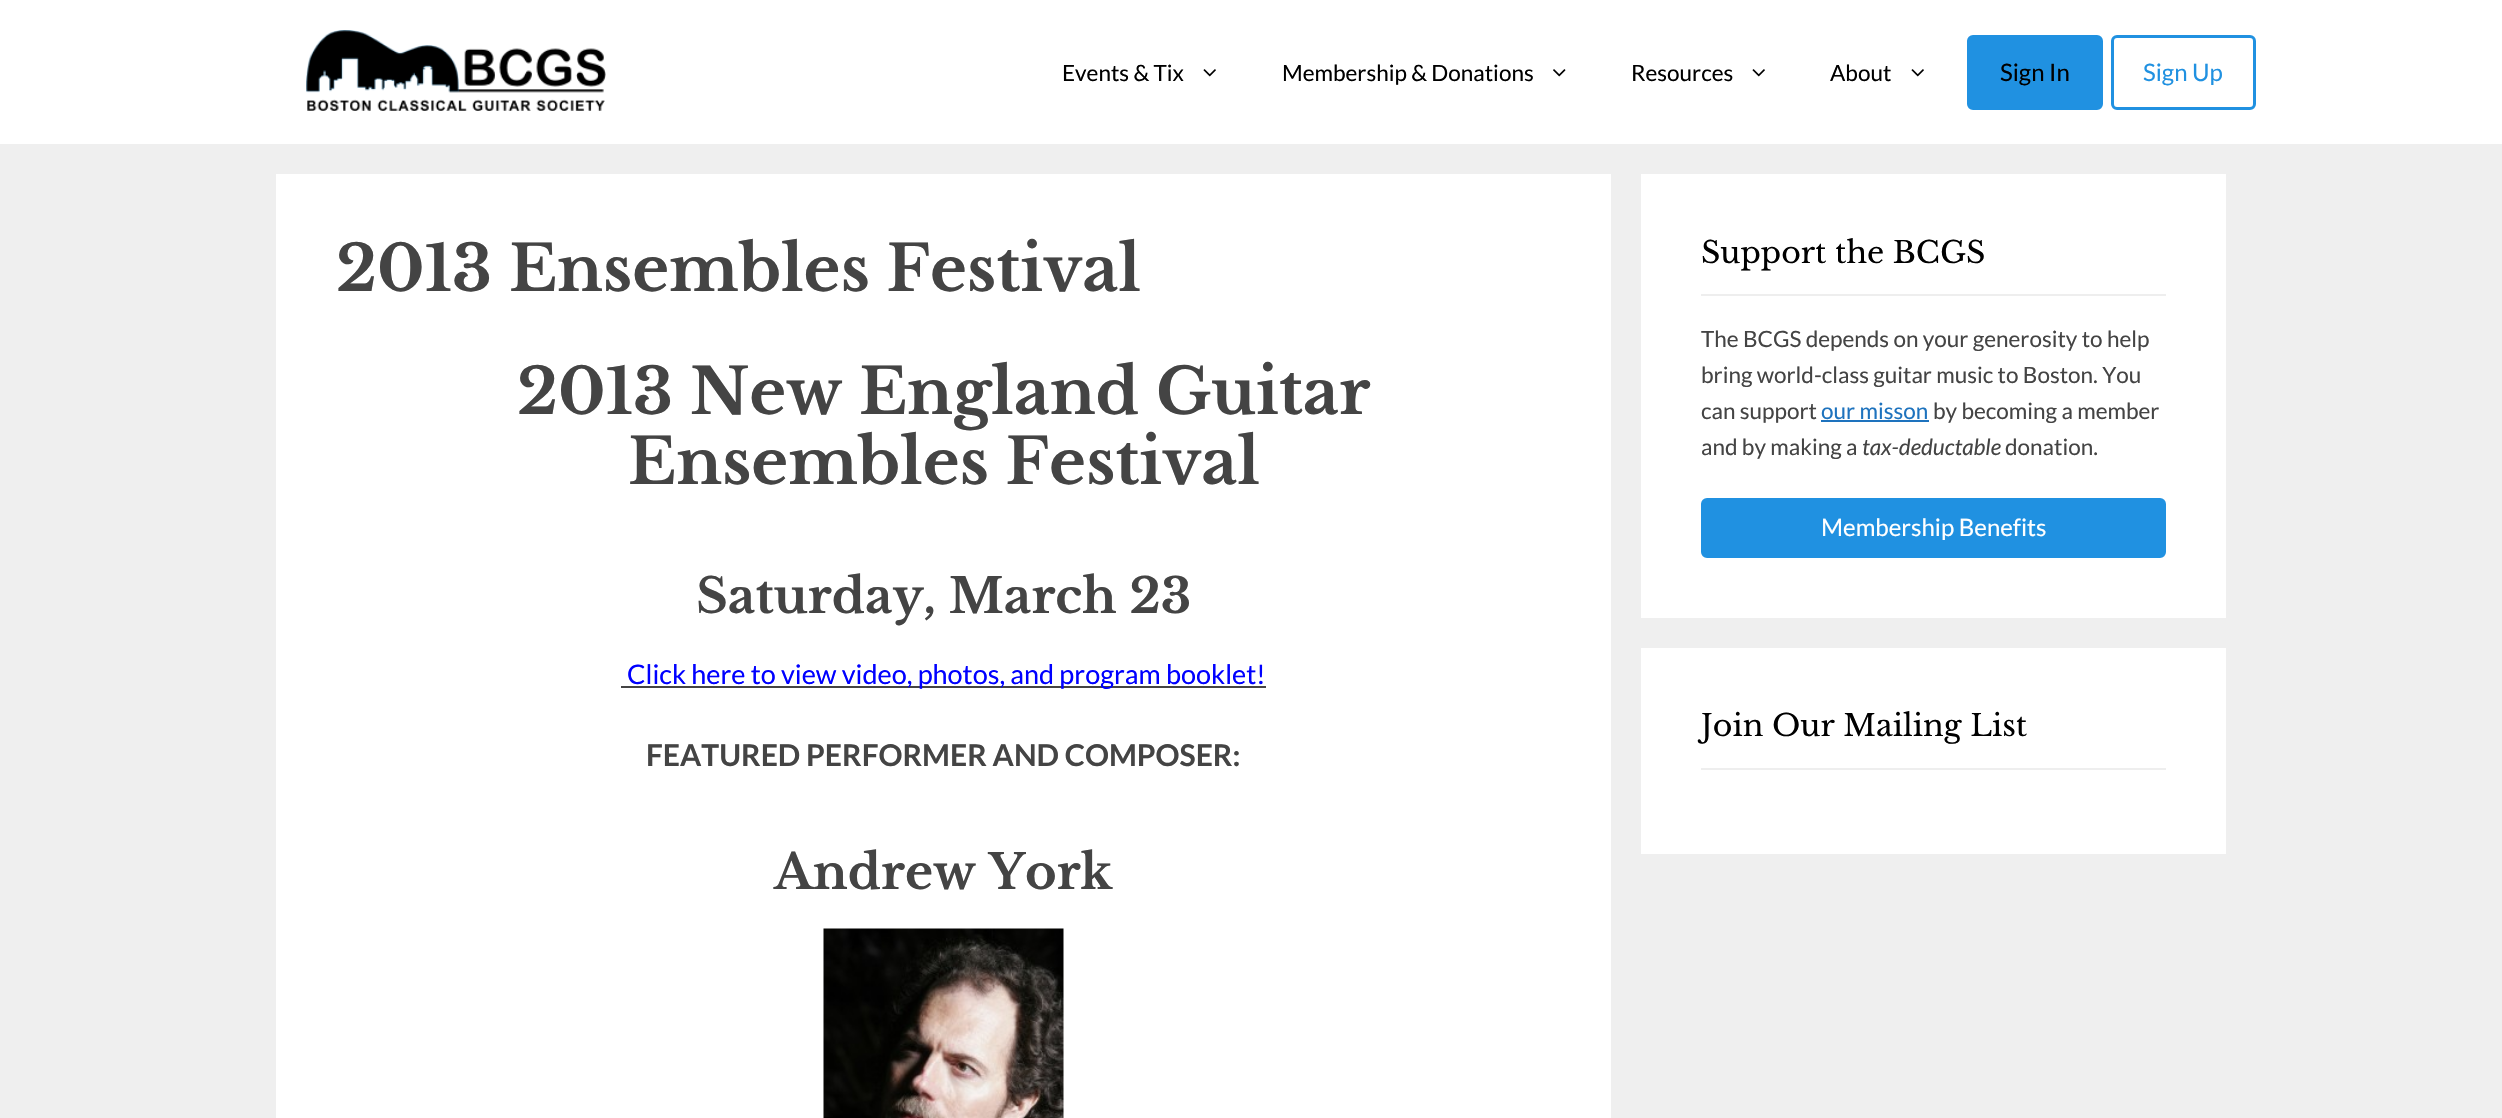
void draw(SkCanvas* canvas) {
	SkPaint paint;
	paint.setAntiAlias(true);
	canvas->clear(0xffefefef);
	paint.setColor(0xffffffff);
	canvas->drawRect(SkRect::MakeXYWH(0, 0, 2502, 144), paint);
	canvas->drawImageRect(SkImages::DeferredFromEncodedData(SkData::MakeFromFileName("img1.png")), SkRect::MakeXYWH(306, 30, 300, 81), SkSamplingOptions());
	SkFont f1(fontMgr->matchFamilyStyle("Lato", SkFontStyle::Normal()), 22.5);
	f1.setSubpixel(true);
	paint.setColor(0xff000000);
	canvas->drawString("Events & Tix", 1062, 81, f1, paint);
	canvas->drawImageRect(SkImages::DeferredFromEncodedData(SkData::MakeFromFileName("img2.png")), SkRect::MakeXYWH(1203, 69, 13, 8), SkSamplingOptions());
	canvas->drawString("Membership & Donations", 1282, 81, f1, paint);
	canvas->drawImageRect(SkImages::DeferredFromEncodedData(SkData::MakeFromFileName("img3.png")), SkRect::MakeXYWH(1553, 69, 13, 8), SkSamplingOptions());
	canvas->drawString("Resources", 1631, 81, f1, paint);
	canvas->drawImageRect(SkImages::DeferredFromEncodedData(SkData::MakeFromFileName("img2.png")), SkRect::MakeXYWH(1752, 69, 13, 8), SkSamplingOptions());
	canvas->drawString("About", 1830, 81, f1, paint);
	canvas->drawImageRect(SkImages::DeferredFromEncodedData(SkData::MakeFromFileName("img2.png")), SkRect::MakeXYWH(1911, 69, 13, 8), SkSamplingOptions());
	paint.setColor(0xff2091e1);
	canvas->drawRoundRect(SkRect::MakeXYWH(1968.5, 36.5, 133, 72), 4.5, 4.5, paint);
	paint.setStroke(true);
	paint.setStrokeWidth(3);
	canvas->drawRoundRect(SkRect::MakeXYWH(1968.5, 36.5, 133, 72), 4.5, 4.5, paint);
	SkFont f2(fontMgr->matchFamilyStyle("Lato", SkFontStyle::Normal()), 24);
	f2.setSubpixel(true);
	paint.setStroke(false);
	paint.setColor(0xff000000);
	canvas->drawString("Sign In", 2000, 81, f2, paint);
	paint.setStroke(true);
	paint.setColor(0xff2091e1);
	canvas->drawRoundRect(SkRect::MakeXYWH(2112.5, 36.5, 142, 72), 4.5, 4.5, paint);
	paint.setStroke(false);
	canvas->drawString("Sign Up", 2143, 81, f2, paint);
	paint.setColor(0xffffffff);
	canvas->drawRect(SkRect::MakeXYWH(276, 174, 1335, 944), paint);
	SkFont f3(fontMgr->matchFamilyStyle("Libre Baskerville", SkFontStyle::Bold()), 63);
	f3.setSubpixel(true);
	paint.setColor(0xff444444);
	canvas->drawString("2013 Ensembles Festival", 336, 291, f3, paint);
	canvas->drawString("2013 New England Guitar", 517, 414, f3, paint);
	canvas->drawString("Ensembles Festival", 628, 484, f3, paint);
	SkFont f4(fontMgr->matchFamilyStyle("Libre Baskerville", SkFontStyle::Bold()), 48);
	f4.setSubpixel(true);
	canvas->drawString("Saturday, March 23", 696, 613, f4, paint);
	canvas->drawRect(SkRect::MakeXYWH(621, 686, 645, 2), paint);
	SkFont f5(fontMgr->matchFamilyStyle("Lato", SkFontStyle::Normal()), 27);
	f5.setSubpixel(true);
	paint.setColor(0xff0000ff);
	canvas->drawString("Click here to view video, photos, and program booklet!", 627, 684, f5, paint);
	SkFont f6(fontMgr->matchFamilyStyle("Lato", SkFontStyle::Bold()), 30);
	f6.setSubpixel(true);
	paint.setColor(0xff444444);
	canvas->drawString("FEATURED PERFORMER AND COMPOSER:", 646, 766, f6, paint);
	canvas->drawString("Andrew York", 774, 889, f4, paint);
	canvas->drawImageRect(SkImages::DeferredFromEncodedData(SkData::MakeFromFileName("img4.png")), SkRect::MakeXYWH(823, 928, 241, 190), SkSamplingOptions());
	paint.setColor(0xffffffff);
	canvas->drawRect(SkRect::MakeXYWH(1641, 174, 585, 444), paint);
	paint.setColor(0xffeeeeee);
	canvas->drawRect(SkRect::MakeXYWH(1701, 294, 465, 2), paint);
	SkFont f7(fontMgr->matchFamilyStyle("Libre Baskerville", SkFontStyle::Normal()), 30);
	f7.setSubpixel(true);
	paint.setColor(0xff000000);
	canvas->drawString("Support the BCGS", 1701, 263, f7, paint);
	paint.setColor(0xff444444);
	canvas->drawString("The BCGS depends on your generosity to help", 1701, 347, f1, paint);
	canvas->drawString("bring world-class guitar music to Boston. You", 1701, 383, f1, paint);
	canvas->drawString("can support", 1701, 419, f1, paint);
	paint.setColor(0xff1e73be);
	canvas->drawString("our misson", 1821, 419, f1, paint);
	canvas->drawRect(SkRect::MakeXYWH(1821, 420, 108, 2), paint);
	paint.setColor(0xff444444);
	canvas->drawString("by becoming a member", 1933, 419, f1, paint);
	canvas->drawString("and by making a", 1701, 455, f1, paint);
	SkFont f8(fontMgr->matchFamilyStyle("Lato", SkFontStyle::Italic()), 22.5);
	f8.setSubpixel(true);
	canvas->drawString("tax-deductable", 1862, 455, f8, paint);
	canvas->drawString("donation.", 2005, 455, f1, paint);
	paint.setColor(0xff2091e1);
	canvas->drawRoundRect(SkRect::MakeXYWH(1702.5, 499.5, 462, 57), 4.5, 4.5, paint);
	paint.setStroke(true);
	canvas->drawRoundRect(SkRect::MakeXYWH(1702.5, 499.5, 462, 57), 4.5, 4.5, paint);
	paint.setStroke(false);
	paint.setColor(0xffffffff);
	canvas->drawString("Membership Benefits", 1821, 536, f2, paint);
	canvas->drawRect(SkRect::MakeXYWH(1641, 648, 585, 206), paint);
	paint.setColor(0xffeeeeee);
	canvas->drawRect(SkRect::MakeXYWH(1701, 768, 465, 2), paint);
	paint.setColor(0xff000000);
	canvas->drawString("Join Our Mailing List", 1701, 736, f7, paint);
}
